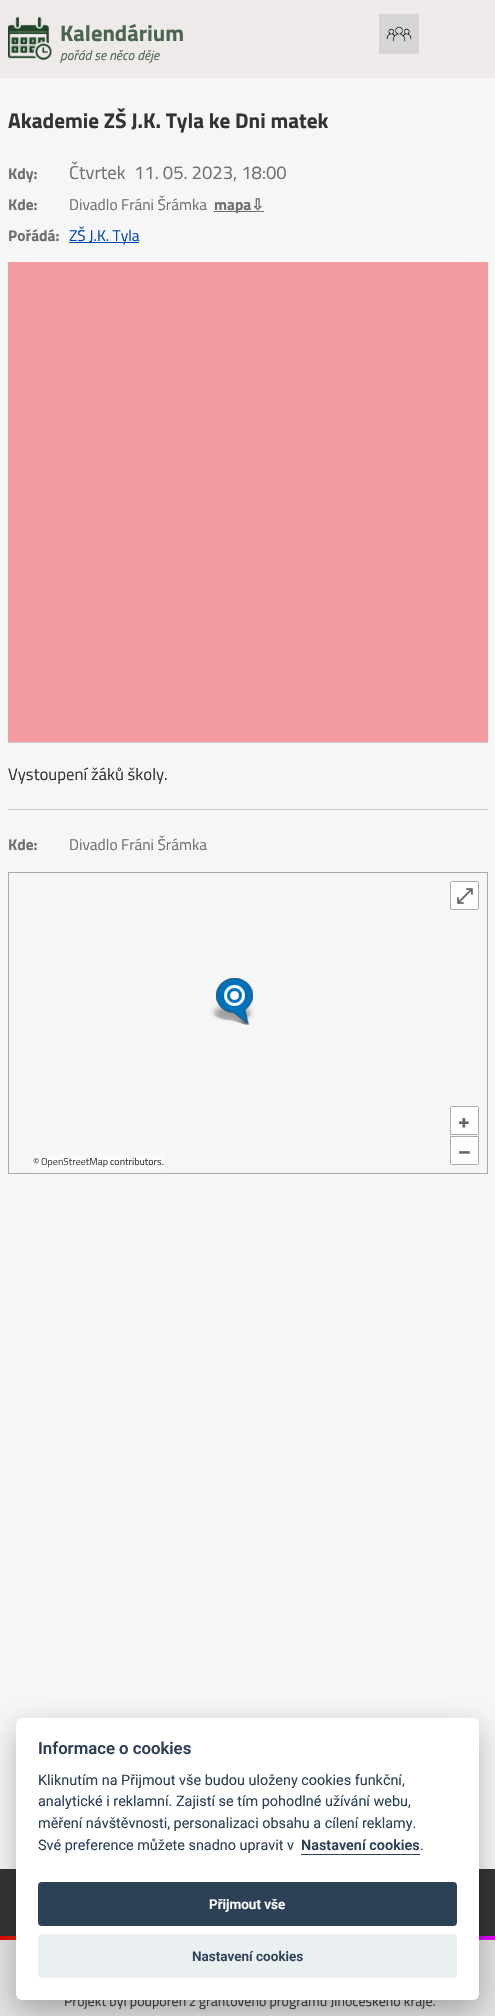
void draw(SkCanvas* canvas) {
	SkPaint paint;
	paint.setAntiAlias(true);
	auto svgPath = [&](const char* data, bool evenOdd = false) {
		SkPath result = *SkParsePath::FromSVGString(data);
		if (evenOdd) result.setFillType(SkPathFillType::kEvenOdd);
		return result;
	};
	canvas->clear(0xfff6f6f6);
	paint.setColor(0xffeeeaea);
	canvas->drawRect(SkRect::MakeXYWH(0, 0, 495, 78), paint);
	canvas->drawImageRect(SkImages::DeferredFromEncodedData(SkData::MakeFromFileName("img1.png")), SkRect::MakeXYWH(8, 16, 44, 44), SkSamplingOptions());
	SkFont f1(fontMgr->matchFamilyStyle("Titillium Web", SkFontStyle::Bold()), 22.5);
	f1.setSubpixel(true);
	paint.setColor(0xff4b6650);
	canvas->drawString("Kalendárium", 60, 41, f1, paint);
	SkFont f2(fontMgr->matchFamilyStyle("Titillium Web", SkFontStyle::Italic()), 13.5);
	f2.setSubpixel(true);
	canvas->drawString("pořád se něco děje", 60, 60, f2, paint);
	canvas->drawImageRect(SkImages::DeferredFromEncodedData(SkData::MakeFromFileName("img2.png")), SkRect::MakeXYWH(379, 14, 40, 40), SkSamplingOptions());
	SkFont f3(fontMgr->matchFamilyStyle("Titillium Web", SkFontStyle::Bold()), 21.2);
	f3.setSubpixel(true);
	paint.setColor(0xff333333);
	canvas->drawString("Akademie ZŠ J.K. Tyla ke Dni matek", 8, 128, f3, paint);
	SkFont f4(fontMgr->matchFamilyStyle("Titillium Web", SkFontStyle::Bold()), 15.5);
	f4.setSubpixel(true);
	paint.setColor(0xff717171);
	canvas->drawString("Kdy:", 8, 179, f4, paint);
	SkFont f5(fontMgr->matchFamilyStyle("Titillium Web", SkFontStyle::Normal()), 18.5);
	f5.setSubpixel(true);
	canvas->drawString("Čtvrtek", 69, 179, f5, paint);
	canvas->drawString("11. 05. 2023, 18:00", 134, 179, f5, paint);
	canvas->drawString("Kde:", 8, 210, f4, paint);
	SkFont f6(fontMgr->matchFamilyStyle("Titillium Web", SkFontStyle::Normal()), 15.5);
	f6.setSubpixel(true);
	canvas->drawString("Divadlo Fráni Šrámka", 69, 210, f6, paint);
	canvas->drawRect(SkRect::MakeXYWH(214, 211, 50, 1), paint);
	canvas->drawString("mapa", 214, 210, f4, paint);
	SkFont f7(fontMgr->matchFamilyStyle("DejaVu Sans", SkFontStyle::Bold()), 15.5);
	f7.setSubpixel(true);
	canvas->drawString("⇩", 251, 210, f7, paint);
	canvas->drawString("Pořádá:", 8, 241, f4, paint);
	paint.setColor(0xff0047b0);
	canvas->drawRect(SkRect::MakeXYWH(69, 242, 70, 1), paint);
	canvas->drawString("ZŠ J.K. Tyla", 69, 241, f6, paint);
	paint.setColor(0xfff39ca2);
	canvas->drawRect(SkRect::MakeXYWH(8, 262, 480, 480), paint);
	paint.setColor(0xffc9c9c9);
	canvas->drawRect(SkRect::MakeXYWH(8, 742, 480, 1), paint);
	canvas->drawRect(SkRect::MakeXYWH(8, 809, 480, 1), paint);
	SkFont f8(fontMgr->matchFamilyStyle("Titillium Web", SkFontStyle::Normal()), 16.75);
	f8.setSubpixel(true);
	paint.setColor(0xff333333);
	canvas->drawString("Vystoupení žáků školy.", 8, 780, f8, paint);
	paint.setColor(0xff717171);
	canvas->drawString("Kde:", 8, 850, f4, paint);
	canvas->drawString("Divadlo Fráni Šrámka", 69, 850, f6, paint);
	paint.setStroke(true);
	paint.setStrokeWidth(1);
	paint.setColor(0xffaaaaaa);
	canvas->drawRect(SkRect::MakeXYWH(8.5, 872.5, 479, 301), paint);
	paint.setStroke(false);
	paint.setColor(0xffffffff);
	canvas->drawRoundRect(SkRect::MakeXYWH(450.5, 881.5, 28, 28), 1.5, 1.5, paint);
	paint.setStroke(true);
	paint.setColor(0xffaaaaaa);
	canvas->drawRoundRect(SkRect::MakeXYWH(450.5, 881.5, 28, 28), 1.5, 1.5, paint);
	SkFont f9(fontMgr->matchFamilyStyle("FreeSerif", SkFontStyle::Bold()), 21);
	f9.setSubpixel(true);
	paint.setStroke(false);
	paint.setColor(0xff666666);
	canvas->drawString("⤢", 456, 903, f9, paint);
	paint.setColor(0xffffffff);
	canvas->drawPath(svgPath("M452 1106.5H477C478 1106.5 478.5 1107 478.5 1108V1134.5H450.5V1108C450.5 1107 451 1106.5 452 1106.5Z"), paint);
	paint.setStroke(true);
	paint.setColor(0xffaaaaaa);
	canvas->drawPath(svgPath("M452 1106.5H477C478 1106.5 478.5 1107 478.5 1108V1134.5H450.5V1108C450.5 1107 451 1106.5 452 1106.5Z"), paint);
	SkFont f10(fontMgr->matchFamilyStyle("Titillium Web", SkFontStyle::Bold()), 21);
	f10.setSubpixel(true);
	paint.setStroke(false);
	paint.setColor(0xff666666);
	canvas->drawString("+", 458, 1128, f10, paint);
	paint.setColor(0xffffffff);
	canvas->drawPath(svgPath("M450.5 1136.5H478.5V1163C478.5 1164 478 1164.5 477 1164.5H452C451 1164.5 450.5 1164 450.5 1163Z"), paint);
	paint.setStroke(true);
	paint.setColor(0xffaaaaaa);
	canvas->drawPath(svgPath("M450.5 1136.5H478.5V1163C478.5 1164 478 1164.5 477 1164.5H452C451 1164.5 450.5 1164 450.5 1163Z"), paint);
	paint.setStroke(false);
	paint.setColor(0xff666666);
	canvas->drawString("–", 458, 1158, f10, paint);
	paint.setColor(0xfffafafa);
	canvas->drawRect(SkRect::MakeXYWH(33, 1154, 131, 15), paint);
	SkFont f11(fontMgr->matchFamilyStyle("Titillium Web", SkFontStyle::Normal()), 10);
	f11.setSubpixel(true);
	paint.setColor(0xff333333);
	canvas->drawString("©", 33, 1165, f11, paint);
	paint.setColor(0xff444444);
	canvas->drawString("OpenStreetMap", 41, 1165, f11, paint);
	paint.setColor(0xff333333);
	canvas->drawString("contributors.", 110, 1165, f11, paint);
	canvas->drawImageRect(SkImages::DeferredFromEncodedData(SkData::MakeFromFileName("img3.png")), SkRect::MakeXYWH(211, 978, 44, 47), SkSamplingOptions());
	canvas->drawRect(SkRect::MakeXYWH(0, 1869, 495, 67), paint);
	paint.setColor(0xffe1e1e1);
	canvas->drawRect(SkRect::MakeXYWH(0, 1940, 495, 76), paint);
	{
		const SkColor colors[] = {0xffdb0000, 0xfff7e600, 0xff00e500, 0xff00c1fc, 0xff2100fc, 0xffe900ff};
		const float stops[] = {0, 0.19, 0.38, 0.6, 0.81, 0.99};
		const SkPoint ends[] = {{0, 1938}, {495, 1938}};
		paint.setShader(SkGradientShader::MakeLinear(ends, colors, stops, 6, SkTileMode::kClamp));
		paint.setAlpha(255);
	}
	canvas->drawRect(SkRect::MakeXYWH(0, 1936, 495, 4), paint);
	paint.setShader(nullptr);
	paint.setColor(0x47020203);
	paint.setMaskFilter(SkMaskFilter::MakeBlur(kNormal_SkBlurStyle, 15));
	canvas->drawRoundRect(SkRect::MakeXYWH(16, 1728, 463, 282), 6, 6, paint);
	paint.setMaskFilter(nullptr);
	SkFont f12(fontMgr->matchFamilyStyle("Titillium Web", SkFontStyle::Normal()), 14);
	f12.setSubpixel(true);
	paint.setColor(0xff333333);
	canvas->drawString("Projekt byl podpořen z grantového programu Jihočeského kraje.", 64, 2006, f12, paint);
	paint.setColor(0xffffffff);
	canvas->drawRoundRect(SkRect::MakeXYWH(16, 1718, 463, 282), 6, 6, paint);
	SkFont f13(fontMgr->matchFamilyStyle("Roboto", SkFontStyle(600, SkFontStyle::kNormal_Width, SkFontStyle::kUpright_Slant)), 16.75);
	f13.setSubpixel(true);
	paint.setColor(0xff2d4156);
	canvas->drawString("Informace o cookies", 38, 1754, f13, paint);
	SkFont f14(fontMgr->matchFamilyStyle("Roboto", SkFontStyle::Normal()), 14.4);
	f14.setSubpixel(true);
	canvas->drawString("Kliknutím na Přijmout vše budou uloženy cookies funkční,", 38, 1785, f14, paint);
	canvas->drawString("analytické i reklamní. Zajistí se tím pohodlné užívání webu,", 38, 1806, f14, paint);
	canvas->drawString("měření návštěvnosti, personalizaci obsahu a cílení reklamy.", 38, 1828, f14, paint);
	canvas->drawString("Své preference můžete snadno upravit v", 38, 1850, f14, paint);
	SkFont f15(fontMgr->matchFamilyStyle("Roboto", SkFontStyle(600, SkFontStyle::kNormal_Width, SkFontStyle::kUpright_Slant)), 14.4);
	f15.setSubpixel(true);
	canvas->drawString("Nastavení cookies", 301, 1850, f15, paint);
	canvas->drawRect(SkRect::MakeXYWH(301, 1854, 119, 1), paint);
	canvas->drawString(".", 420, 1850, f14, paint);
	canvas->drawRoundRect(SkRect::MakeXYWH(38, 1882, 419, 44), 4, 4, paint);
	SkFont f16(fontMgr->matchFamilyStyle("Roboto", SkFontStyle(600, SkFontStyle::kNormal_Width, SkFontStyle::kUpright_Slant)), 13.5);
	f16.setSubpixel(true);
	paint.setColor(0xffffffff);
	canvas->drawString("Přijmout vše", 209, 1909, f16, paint);
	paint.setColor(0xffeaeff2);
	canvas->drawRoundRect(SkRect::MakeXYWH(38, 1934, 419, 44), 4, 4, paint);
	paint.setColor(0xff2d4156);
	canvas->drawString("Nastavení cookies", 192, 1961, f16, paint);
}
